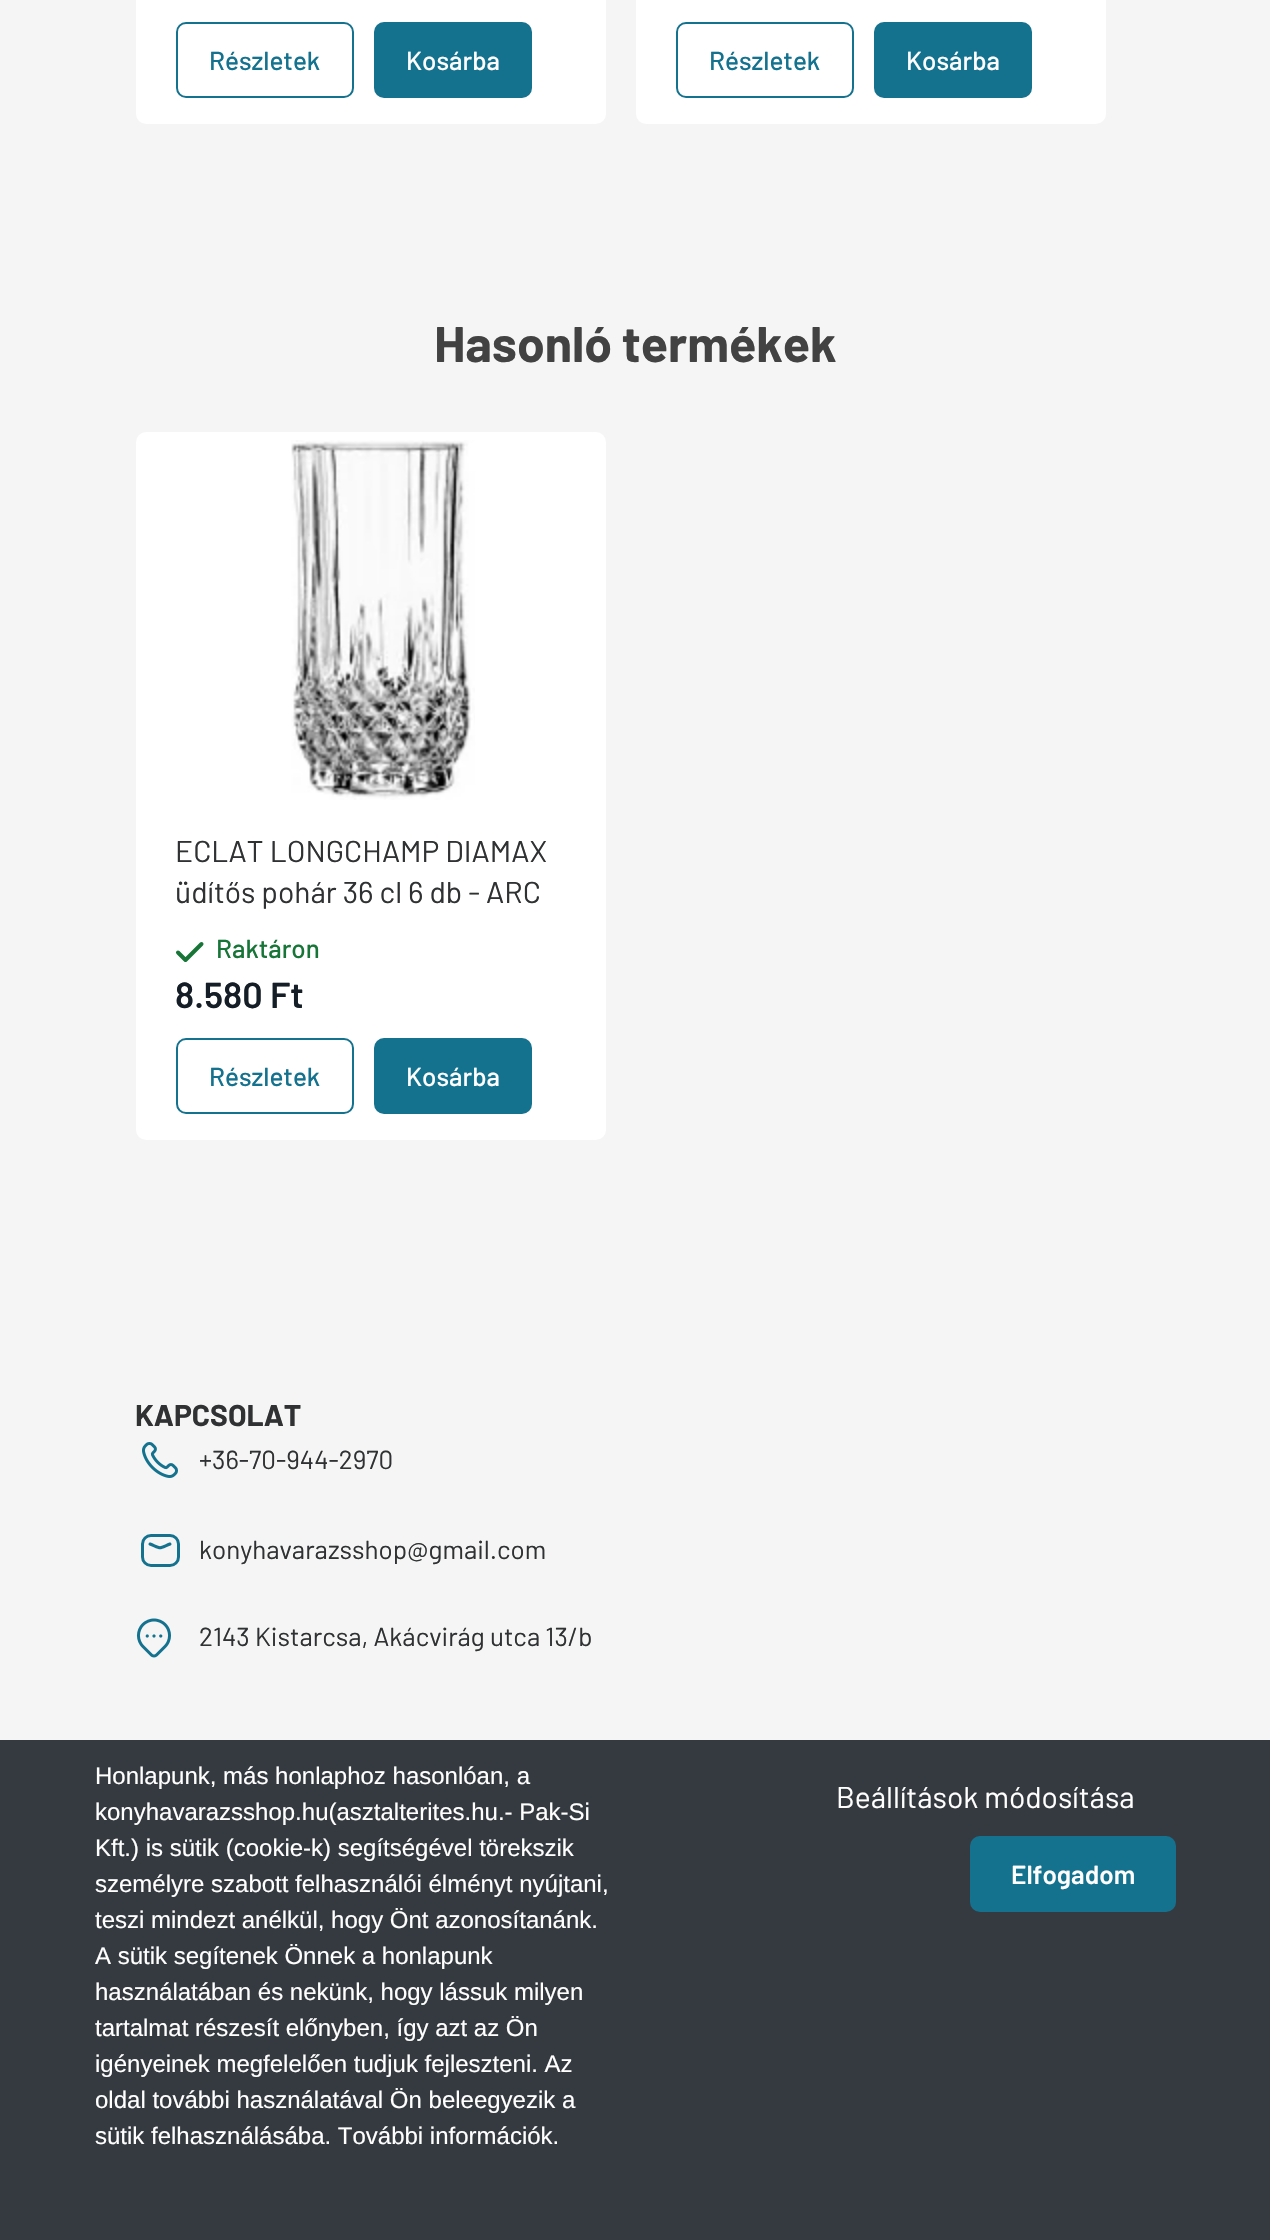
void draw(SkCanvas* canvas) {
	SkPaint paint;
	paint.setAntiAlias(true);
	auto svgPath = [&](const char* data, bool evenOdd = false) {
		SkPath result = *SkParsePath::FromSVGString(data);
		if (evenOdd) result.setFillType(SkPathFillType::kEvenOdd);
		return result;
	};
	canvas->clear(0xfff5f5f5);
	paint.setColor(0xffffffff);
	canvas->drawRoundRect(SkRect::MakeXYWH(136, -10, 470, 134), 10, 10, paint);
	paint.setStroke(true);
	paint.setStrokeWidth(2);
	paint.setColor(0xff14728f);
	canvas->drawRoundRect(SkRect::MakeXYWH(177, 23, 176, 74), 9, 9, paint);
	SkFont f1(fontMgr->matchFamilyStyle("Barlow", SkFontStyle(500, SkFontStyle::kNormal_Width, SkFontStyle::kUpright_Slant)), 26);
	f1.setSubpixel(true);
	paint.setStroke(false);
	canvas->drawString("Részletek", 209, 70, f1, paint);
	canvas->drawRoundRect(SkRect::MakeXYWH(374, 22, 158, 76), 10, 10, paint);
	paint.setColor(0xffffffff);
	canvas->drawString("Kosárba", 406, 70, f1, paint);
	canvas->drawRoundRect(SkRect::MakeXYWH(636, -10, 470, 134), 10, 10, paint);
	paint.setStroke(true);
	paint.setColor(0xff14728f);
	canvas->drawRoundRect(SkRect::MakeXYWH(677, 23, 176, 74), 9, 9, paint);
	paint.setStroke(false);
	canvas->drawString("Részletek", 709, 70, f1, paint);
	canvas->drawRoundRect(SkRect::MakeXYWH(874, 22, 158, 76), 10, 10, paint);
	paint.setColor(0xffffffff);
	canvas->drawString("Kosárba", 906, 70, f1, paint);
	SkFont f2(fontMgr->matchFamilyStyle("Barlow", SkFontStyle::Bold()), 50);
	f2.setSubpixel(true);
	paint.setColor(0xff424242);
	canvas->drawString("Hasonló termékek", 434, 362, f2, paint);
	paint.setColor(0xffffffff);
	canvas->drawRoundRect(SkRect::MakeXYWH(136, 432, 470, 708), 10, 10, paint);
	canvas->drawImageRect(SkImages::DeferredFromEncodedData(SkData::MakeFromFileName("img1.png")), SkRect::MakeXYWH(291, 440, 184, 360), SkSamplingOptions());
	SkFont f3(fontMgr->matchFamilyStyle("Barlow", SkFontStyle::Normal()), 30);
	f3.setSubpixel(true);
	paint.setColor(0xff2f3132);
	canvas->drawString("ECLAT LONGCHAMP DIAMAX", 175, 862, f3, paint);
	canvas->drawString("üdítős pohár 36 cl 6 db - ARC", 175, 903, f3, paint);
	paint.setStroke(true);
	paint.setStrokeWidth(4);
	paint.setStrokeCap(SkPaint::kRound_Cap);
	paint.setStrokeJoin(SkPaint::kRound_Join);
	paint.setColor(0xff177537);
	canvas->drawPath(svgPath("M201.5 944L185.5 960L178 952.5"), paint);
	paint.setStroke(false);
	canvas->drawString("Raktáron", 216, 958, f1, paint);
	SkFont f4(fontMgr->matchFamilyStyle("Barlow", SkFontStyle(600, SkFontStyle::kNormal_Width, SkFontStyle::kUpright_Slant)), 36);
	f4.setSubpixel(true);
	paint.setColor(0xff151e26);
	canvas->drawString("8.580 Ft", 175, 1008, f4, paint);
	paint.setStroke(true);
	paint.setStrokeWidth(2);
	paint.setStrokeCap(SkPaint::kButt_Cap);
	paint.setStrokeJoin(SkPaint::kMiter_Join);
	paint.setColor(0xff14728f);
	canvas->drawRoundRect(SkRect::MakeXYWH(177, 1039, 176, 74), 9, 9, paint);
	paint.setStroke(false);
	canvas->drawString("Részletek", 209, 1086, f1, paint);
	canvas->drawRoundRect(SkRect::MakeXYWH(374, 1038, 158, 76), 10, 10, paint);
	paint.setColor(0xffffffff);
	canvas->drawString("Kosárba", 406, 1086, f1, paint);
	SkFont f5(fontMgr->matchFamilyStyle("Barlow", SkFontStyle::Bold()), 30);
	f5.setSubpixel(true);
	paint.setColor(0xff2f3132);
	canvas->drawString("KAPCSOLAT", 135, 1426, f5, paint);
	canvas->drawImageRect(SkImages::DeferredFromEncodedData(SkData::MakeFromFileName("img2.png")), SkRect::MakeXYWH(142, 1442, 36, 36), SkSamplingOptions());
	SkFont f6(fontMgr->matchFamilyStyle("Barlow", SkFontStyle::Normal()), 26);
	f6.setSubpixel(true);
	canvas->drawString("+36-70-944-2970", 199, 1469, f6, paint);
	paint.setStroke(true);
	paint.setStrokeWidth(3);
	paint.setColor(0xff14728f);
	canvas->drawRoundRect(SkRect::MakeXYWH(142.5, 1535.5, 36, 30), 8.5, 8.5, paint);
	paint.setStrokeCap(SkPaint::kRound_Cap);
	paint.setStrokeJoin(SkPaint::kRound_Join);
	canvas->drawPath(svgPath("M150 1544C162 1549 158 1549 170 1544"), paint);
	paint.setStroke(false);
	paint.setColor(0xff2f3132);
	canvas->drawString("konyhavarazsshop@gmail.com", 199, 1559, f6, paint);
	canvas->drawImageRect(SkImages::DeferredFromEncodedData(SkData::MakeFromFileName("img3.png")), SkRect::MakeXYWH(136, 1618, 35, 40), SkSamplingOptions());
	canvas->drawString("2143 Kistarcsa, Akácvirág utca 13/b", 199, 1646, f6, paint);
	paint.setColor(0xff343a40);
	canvas->drawRect(SkRect::MakeXYWH(0, 1740, 1270, 500), paint);
	SkFont f7(fontMgr->matchFamilyStyle("Liberation Sans", SkFontStyle::Normal()), 24);
	f7.setSubpixel(true);
	paint.setColor(0xffffffff);
	canvas->drawString("Honlapunk, más honlaphoz hasonlóan, a", 95, 1784, f7, paint);
	canvas->drawString("konyhavarazsshop.hu(asztalterites.hu.- Pak-Si", 95, 1820, f7, paint);
	canvas->drawString("Kft.) is sütik (cookie-k) segítségével törekszik", 95, 1856, f7, paint);
	canvas->drawString("személyre szabott felhasználói élményt nyújtani,", 95, 1892, f7, paint);
	canvas->drawString("teszi mindezt anélkül, hogy Önt azonosítanánk.", 95, 1928, f7, paint);
	canvas->drawString("A sütik segítenek Önnek a honlapunk", 95, 1964, f7, paint);
	canvas->drawString("használatában és nekünk, hogy lássuk milyen", 95, 2000, f7, paint);
	canvas->drawString("tartalmat részesít előnyben, így azt az Ön", 95, 2036, f7, paint);
	canvas->drawString("igényeinek megfelelően tudjuk fejleszteni. Az", 95, 2072, f7, paint);
	canvas->drawString("oldal további használatával Ön beleegyezik a", 95, 2108, f7, paint);
	canvas->drawString("sütik felhasználásába. További információk.", 95, 2144, f7, paint);
	canvas->drawString("Beállítások módosítása", 836, 1808, f3, paint);
	paint.setColor(0xff14728f);
	canvas->drawRoundRect(SkRect::MakeXYWH(970, 1836, 206, 76), 10, 10, paint);
	SkFont f8(fontMgr->matchFamilyStyle("Barlow", SkFontStyle(600, SkFontStyle::kNormal_Width, SkFontStyle::kUpright_Slant)), 26);
	f8.setSubpixel(true);
	paint.setColor(0xffffffff);
	canvas->drawString("Elfogadom", 1011, 1884, f8, paint);
}
